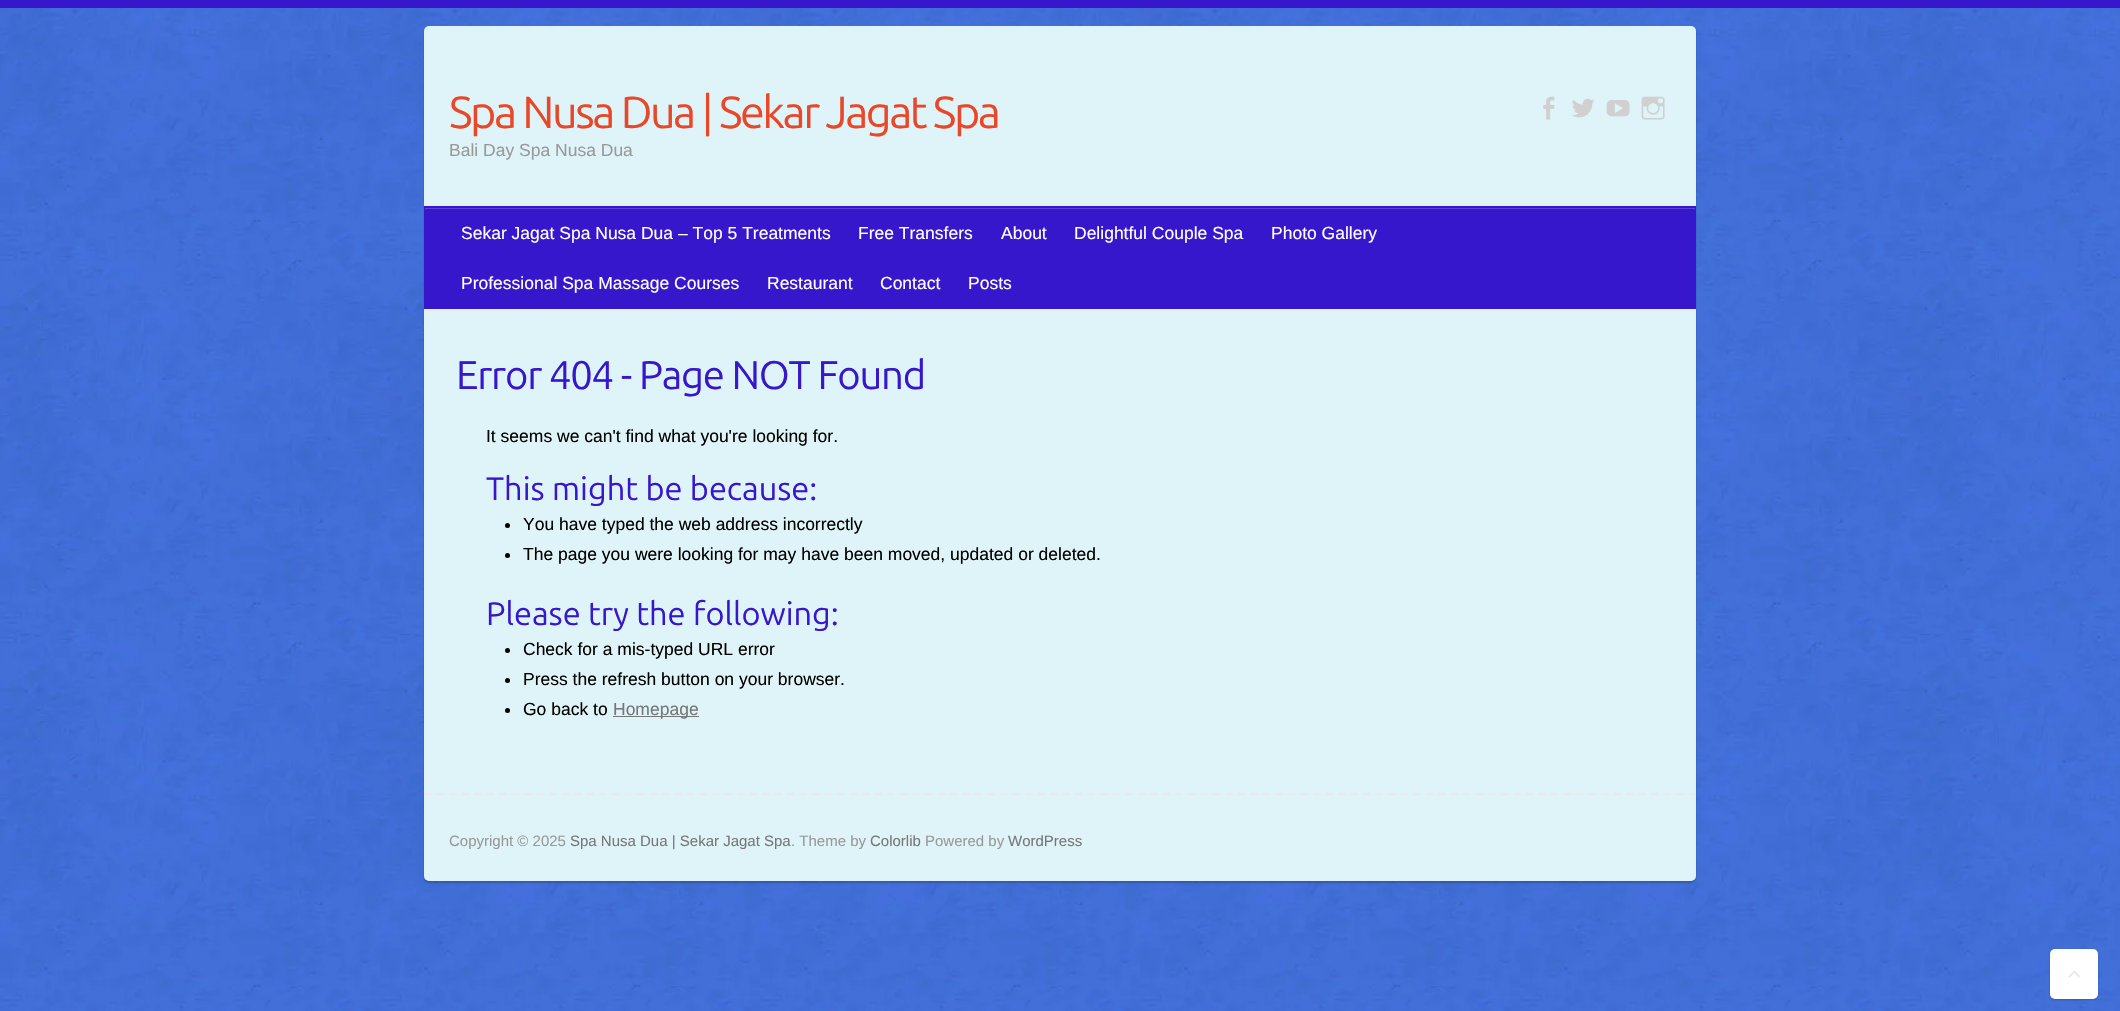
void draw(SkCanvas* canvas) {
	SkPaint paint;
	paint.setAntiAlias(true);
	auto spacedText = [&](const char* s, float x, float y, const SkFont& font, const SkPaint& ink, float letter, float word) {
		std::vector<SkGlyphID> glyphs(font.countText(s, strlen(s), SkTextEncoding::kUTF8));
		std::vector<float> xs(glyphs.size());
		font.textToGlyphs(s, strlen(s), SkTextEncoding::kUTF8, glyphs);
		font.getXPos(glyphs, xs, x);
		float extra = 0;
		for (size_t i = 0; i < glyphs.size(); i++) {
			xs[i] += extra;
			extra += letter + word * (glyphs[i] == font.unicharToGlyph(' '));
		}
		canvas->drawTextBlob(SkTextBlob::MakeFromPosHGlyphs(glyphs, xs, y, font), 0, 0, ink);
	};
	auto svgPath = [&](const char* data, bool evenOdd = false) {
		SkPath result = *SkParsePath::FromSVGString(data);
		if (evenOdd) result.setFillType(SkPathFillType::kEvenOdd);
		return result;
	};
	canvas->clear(0xffffffff);
	canvas->drawImageRect(SkImages::DeferredFromEncodedData(SkData::MakeFromFileName("img1.png")), SkRect::MakeXYWH(0, 8, 2120, 1003), SkSamplingOptions());
	paint.setColor(0xff3617cc);
	canvas->drawRect(SkRect::MakeXYWH(0, 0, 2120, 8), paint);
	paint.setColor(0x33000000);
	paint.setMaskFilter(SkMaskFilter::MakeBlur(kNormal_SkBlurStyle, 1));
	canvas->drawRoundRect(SkRect::MakeXYWH(424, 28, 1272, 855), 5, 5, paint);
	paint.setMaskFilter(nullptr);
	paint.setColor(0xffdff4f9);
	canvas->drawRoundRect(SkRect::MakeXYWH(424, 26, 1272, 855), 5, 5, paint);
	SkFont f1(fontMgr->matchFamilyStyle("Ubuntu", SkFontStyle::Normal()), 45);
	f1.setSubpixel(true);
	paint.setColor(0xffea4728);
	spacedText("Spa Nusa Dua | Sekar Jagat Spa", 449, 128, f1, paint, -2.5, 0);
	SkFont f2(fontMgr->matchFamilyStyle("Liberation Sans", SkFontStyle::Normal()), 17.5);
	f2.setSubpixel(true);
	paint.setColor(0xff999999);
	canvas->drawString("Bali Day Spa Nusa Dua", 449, 156, f2, paint);
	canvas->drawImageRect(SkImages::DeferredFromEncodedData(SkData::MakeFromFileName("img2.png")), SkRect::MakeXYWH(1543, 96, 12, 24), SkSamplingOptions());
	canvas->drawImageRect(SkImages::DeferredFromEncodedData(SkData::MakeFromFileName("img3.png")), SkRect::MakeXYWH(1572, 98, 23, 20), SkSamplingOptions());
	canvas->drawImageRect(SkImages::DeferredFromEncodedData(SkData::MakeFromFileName("img4.png")), SkRect::MakeXYWH(1606, 100, 24, 17), SkSamplingOptions());
	canvas->drawImageRect(SkImages::DeferredFromEncodedData(SkData::MakeFromFileName("img5.png")), SkRect::MakeXYWH(1641, 96, 24, 24), SkSamplingOptions());
	paint.setColor(0xff3617cc);
	canvas->drawRect(SkRect::MakeXYWH(424, 206, 1272, 103), paint);
	paint.setColor(0xff5e45d6);
	canvas->drawRect(SkRect::MakeXYWH(425, 208, 1270, 1), paint);
	paint.setColor(0xffffffff);
	canvas->drawString("Sekar Jagat Spa Nusa Dua – Top 5 Treatments", 461, 239, f2, paint);
	canvas->drawString("Free Transfers", 858, 239, f2, paint);
	canvas->drawString("About", 1001, 239, f2, paint);
	canvas->drawString("Delightful Couple Spa", 1074, 239, f2, paint);
	canvas->drawString("Photo Gallery", 1271, 239, f2, paint);
	canvas->drawString("Professional Spa Massage Courses", 461, 289, f2, paint);
	canvas->drawString("Restaurant", 767, 289, f2, paint);
	canvas->drawString("Contact", 880, 289, f2, paint);
	canvas->drawString("Posts", 968, 289, f2, paint);
	SkFont f3(fontMgr->matchFamilyStyle("Ubuntu", SkFontStyle::Normal()), 40);
	f3.setSubpixel(true);
	paint.setColor(0xff3617cc);
	spacedText("Error 404 - Page NOT Found", 456, 389, f3, paint, -1.25, 0);
	paint.setColor(0xff000000);
	canvas->drawString("It seems we can't find what you're looking for.", 486, 442, f2, paint);
	SkFont f4(fontMgr->matchFamilyStyle("Ubuntu", SkFontStyle::Normal()), 32.5);
	f4.setSubpixel(true);
	paint.setColor(0xff3617cc);
	canvas->drawString("This might be because:", 486, 500, f4, paint);
	paint.setColor(0xff000000);
	canvas->drawCircle(507.5, 525.5, 2.5, paint);
	canvas->drawString("You have typed the web address incorrectly", 523, 530, f2, paint);
	canvas->drawCircle(507.5, 555.5, 2.5, paint);
	canvas->drawString("The page you were looking for may have been moved, updated or deleted.", 523, 560, f2, paint);
	paint.setColor(0xff3617cc);
	canvas->drawString("Please try the following:", 486, 625, f4, paint);
	paint.setColor(0xff000000);
	canvas->drawCircle(507.5, 650.5, 2.5, paint);
	canvas->drawString("Check for a mis-typed URL error", 523, 655, f2, paint);
	canvas->drawCircle(507.5, 680.5, 2.5, paint);
	canvas->drawString("Press the refresh button on your browser.", 523, 685, f2, paint);
	canvas->drawCircle(507.5, 710.5, 2.5, paint);
	canvas->drawString("Go back to", 523, 715, f2, paint);
	paint.setColor(0xff777777);
	canvas->drawRect(SkRect::MakeXYWH(613, 716, 86, 1), paint);
	canvas->drawString("Homepage", 613, 715, f2, paint);
	paint.setStroke(true);
	paint.setStrokeWidth(2.5);
	paint.setColor(0xffeaeaea);
	paint.setPathEffect(SkDashPathEffect::Make({{7.5f, 5.02f}}, 0));
	canvas->drawPath(svgPath("M424 794H1696"), paint);
	paint.setPathEffect(nullptr);
	SkFont f5(fontMgr->matchFamilyStyle("Liberation Sans", SkFontStyle::Normal()), 15);
	f5.setSubpixel(true);
	paint.setStroke(false);
	paint.setColor(0xff999999);
	canvas->drawString("Copyright © 2025", 449, 846, f5, paint);
	paint.setColor(0xff777777);
	canvas->drawString("Spa Nusa Dua | Sekar Jagat Spa", 570, 846, f5, paint);
	paint.setColor(0xff999999);
	canvas->drawString(". Theme by", 791, 846, f5, paint);
	paint.setColor(0xff777777);
	canvas->drawString("Colorlib", 870, 846, f5, paint);
	paint.setColor(0xff999999);
	canvas->drawString("Powered by", 925, 846, f5, paint);
	paint.setColor(0xff777777);
	canvas->drawString("WordPress", 1008, 846, f5, paint);
	paint.setColor(0x33000000);
	paint.setMaskFilter(SkMaskFilter::MakeBlur(kNormal_SkBlurStyle, 1));
	canvas->drawRoundRect(SkRect::MakeXYWH(2050, 950, 48, 50), 5, 5, paint);
	paint.setMaskFilter(nullptr);
	paint.setColor(0xffffffff);
	canvas->drawRoundRect(SkRect::MakeXYWH(2050, 949, 48, 50), 5, 5, paint);
	canvas->drawImageRect(SkImages::DeferredFromEncodedData(SkData::MakeFromFileName("img6.png")), SkRect::MakeXYWH(2068, 970, 13, 8), SkSamplingOptions());
}
